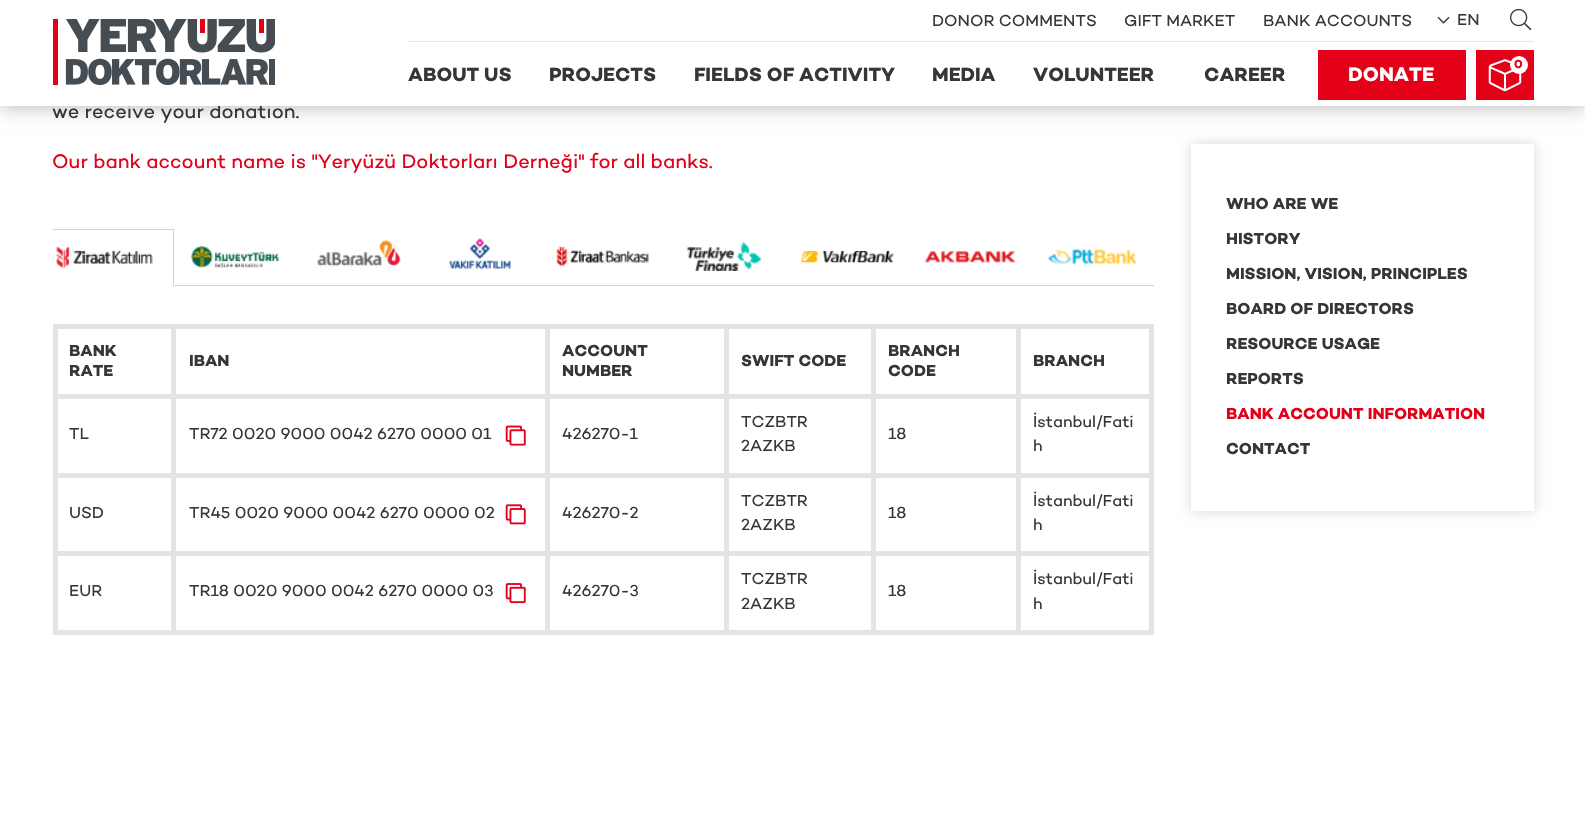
void draw(SkCanvas* canvas) {
	SkPaint paint;
	paint.setAntiAlias(true);
	canvas->clear(0xffffffff);
	paint.setColor(0x4d000000);
	paint.setMaskFilter(SkMaskFilter::MakeBlur(kNormal_SkBlurStyle, 9.5));
	canvas->drawRect(SkRect::MakeXYWH(0, 0, 1585, 106), paint);
	paint.setMaskFilter(nullptr);
	SkFont f1(fontMgr->matchFamilyStyle("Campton", SkFontStyle::Normal()), 20);
	f1.setSubpixel(true);
	paint.setColor(0xff363636);
	canvas->drawString("we receive your donation.", 52, 118, f1, paint);
	paint.setColor(0xffffffff);
	canvas->drawRect(SkRect::MakeXYWH(0, 0, 1585, 106), paint);
	canvas->drawImageRect(SkImages::DeferredFromEncodedData(SkData::MakeFromFileName("img1.png")), SkRect::MakeXYWH(53, 19, 222, 66), SkSamplingOptions());
	SkFont f2(fontMgr->matchFamilyStyle("Campton", SkFontStyle::Normal()), 16.25);
	f2.setSubpixel(true);
	paint.setColor(0xff363636);
	canvas->drawString("DONOR COMMENTS", 932, 26, f2, paint);
	canvas->drawString("GIFT MARKET", 1124, 26, f2, paint);
	canvas->drawString("BANK ACCOUNTS", 1263, 26, f2, paint);
	canvas->drawImageRect(SkImages::DeferredFromEncodedData(SkData::MakeFromFileName("img2.png")), SkRect::MakeXYWH(1437, 16, 13, 8), SkSamplingOptions());
	canvas->drawString("EN", 1457, 25, f2, paint);
	canvas->drawImageRect(SkImages::DeferredFromEncodedData(SkData::MakeFromFileName("img3.png")), SkRect::MakeXYWH(1510, 8, 22, 23), SkSamplingOptions());
	paint.setColor(0xffe7e7e7);
	canvas->drawRect(SkRect::MakeXYWH(408, 41, 1126, 1), paint);
	SkFont f3(fontMgr->matchFamilyStyle("Campton", SkFontStyle::Bold()), 19.5);
	f3.setSubpixel(true);
	paint.setColor(0xff363636);
	canvas->drawString("ABOUT US", 408, 81, f3, paint);
	canvas->drawString("PROJECTS", 549, 81, f3, paint);
	canvas->drawString("FIELDS OF ACTIVITY", 694, 81, f3, paint);
	canvas->drawString("MEDIA", 932, 81, f3, paint);
	canvas->drawString("VOLUNTEER", 1033, 81, f3, paint);
	canvas->drawString("CAREER", 1204, 81, f3, paint);
	paint.setColor(0xffe50019);
	canvas->drawRect(SkRect::MakeXYWH(1476, 50, 58, 50), paint);
	canvas->drawImageRect(SkImages::DeferredFromEncodedData(SkData::MakeFromFileName("img4.png")), SkRect::MakeXYWH(1488, 59, 34, 33), SkSamplingOptions());
	paint.setColor(0xffffffff);
	canvas->drawCircle(1519, 65, 9, paint);
	SkFont f4(fontMgr->matchFamilyStyle("Campton", SkFontStyle::Bold()), 12);
	f4.setSubpixel(true);
	paint.setColor(0xffe50019);
	canvas->drawString("0", 1514, 68, f4, paint);
	canvas->drawRect(SkRect::MakeXYWH(1318, 50, 148, 50), paint);
	SkFont f5(fontMgr->matchFamilyStyle("Campton", SkFontStyle::Bold()), 20);
	f5.setSubpixel(true);
	paint.setColor(0xffffffff);
	canvas->drawString("DONATE", 1348, 81, f5, paint);
	paint.setColor(0xffe50019);
	canvas->drawString("Our bank account name is \"Yeryüzü Doktorları Derneği\" for all banks.", 52, 168, f1, paint);
	paint.setColor(0xffd2d2d2);
	canvas->drawRect(SkRect::MakeXYWH(174, 285, 980, 1), paint);
	canvas->drawRect(SkRect::MakeXYWH(53, 229, 121, 1), paint);
	canvas->drawRect(SkRect::MakeXYWH(173, 229, 1, 57), paint);
	canvas->drawImageRect(SkImages::DeferredFromEncodedData(SkData::MakeFromFileName("img5.png")), SkRect::MakeXYWH(56, 246, 97, 23), SkSamplingOptions());
	canvas->drawImageRect(SkImages::DeferredFromEncodedData(SkData::MakeFromFileName("img6.png")), SkRect::MakeXYWH(191, 245, 88, 23), SkSamplingOptions());
	canvas->drawImageRect(SkImages::DeferredFromEncodedData(SkData::MakeFromFileName("img7.png")), SkRect::MakeXYWH(317, 240, 84, 27), SkSamplingOptions());
	canvas->drawImageRect(SkImages::DeferredFromEncodedData(SkData::MakeFromFileName("img8.png")), SkRect::MakeXYWH(449, 238, 62, 32), SkSamplingOptions());
	canvas->drawImageRect(SkImages::DeferredFromEncodedData(SkData::MakeFromFileName("img9.png")), SkRect::MakeXYWH(556, 246, 93, 21), SkSamplingOptions());
	canvas->drawImageRect(SkImages::DeferredFromEncodedData(SkData::MakeFromFileName("img10.png")), SkRect::MakeXYWH(687, 242, 75, 29), SkSamplingOptions());
	canvas->drawImageRect(SkImages::DeferredFromEncodedData(SkData::MakeFromFileName("img11.png")), SkRect::MakeXYWH(801, 251, 93, 12), SkSamplingOptions());
	canvas->drawImageRect(SkImages::DeferredFromEncodedData(SkData::MakeFromFileName("img12.png")), SkRect::MakeXYWH(924, 251, 92, 12), SkSamplingOptions());
	canvas->drawImageRect(SkImages::DeferredFromEncodedData(SkData::MakeFromFileName("img13.png")), SkRect::MakeXYWH(1047, 248, 90, 17), SkSamplingOptions());
	paint.setColor(0xffe4e4e4);
	canvas->drawRect(SkRect::MakeXYWH(53, 324, 1101, 5), paint);
	canvas->drawRect(SkRect::MakeXYWH(53, 394, 1101, 5), paint);
	canvas->drawRect(SkRect::MakeXYWH(1149, 394, 5, 241), paint);
	canvas->drawRect(SkRect::MakeXYWH(1149, 324, 5, 75), paint);
	canvas->drawRect(SkRect::MakeXYWH(53, 394, 5, 241), paint);
	canvas->drawRect(SkRect::MakeXYWH(53, 324, 5, 75), paint);
	SkFont f6(fontMgr->matchFamilyStyle("Campton", SkFontStyle::Bold()), 16.25);
	f6.setSubpixel(true);
	paint.setColor(0xff363636);
	canvas->drawString("BANK", 69, 356, f6, paint);
	canvas->drawString("RATE", 69, 376, f6, paint);
	canvas->drawString("IBAN", 189, 366, f6, paint);
	canvas->drawString("ACCOUNT", 562, 356, f6, paint);
	canvas->drawString("NUMBER", 562, 376, f6, paint);
	canvas->drawString("SWIFT CODE", 741, 366, f6, paint);
	canvas->drawString("BRANCH", 888, 356, f6, paint);
	canvas->drawString("CODE", 888, 376, f6, paint);
	canvas->drawString("BRANCH", 1033, 366, f6, paint);
	paint.setColor(0xffe4e4e4);
	canvas->drawRect(SkRect::MakeXYWH(53, 473, 1101, 5), paint);
	paint.setColor(0xff363636);
	canvas->drawString("TL", 69, 439, f2, paint);
	canvas->drawString("TR72 0020 9000 0042 6270 0000 01", 189, 439, f2, paint);
	canvas->drawImageRect(SkImages::DeferredFromEncodedData(SkData::MakeFromFileName("img14.png")), SkRect::MakeXYWH(505, 425, 21, 21), SkSamplingOptions());
	canvas->drawString("426270-1", 562, 439, f2, paint);
	canvas->drawString("TCZBTR", 741, 427, f2, paint);
	canvas->drawString("2AZKB", 741, 451, f2, paint);
	canvas->drawString("18", 888, 439, f2, paint);
	canvas->drawString("İstanbul/Fati", 1033, 427, f2, paint);
	canvas->drawString("h", 1033, 451, f2, paint);
	paint.setColor(0xffe4e4e4);
	canvas->drawRect(SkRect::MakeXYWH(53, 551, 1101, 5), paint);
	paint.setColor(0xff363636);
	canvas->drawString("USD", 69, 518, f2, paint);
	canvas->drawString("TR45 0020 9000 0042 6270 0000 02", 189, 518, f2, paint);
	canvas->drawImageRect(SkImages::DeferredFromEncodedData(SkData::MakeFromFileName("img15.png")), SkRect::MakeXYWH(505, 504, 21, 21), SkSamplingOptions());
	canvas->drawString("426270-2", 562, 518, f2, paint);
	canvas->drawString("TCZBTR", 741, 506, f2, paint);
	canvas->drawString("2AZKB", 741, 530, f2, paint);
	canvas->drawString("18", 888, 518, f2, paint);
	canvas->drawString("İstanbul/Fati", 1033, 506, f2, paint);
	canvas->drawString("h", 1033, 530, f2, paint);
	paint.setColor(0xffe4e4e4);
	canvas->drawRect(SkRect::MakeXYWH(53, 630, 1101, 5), paint);
	canvas->drawRect(SkRect::MakeXYWH(171, 324, 5, 311), paint);
	paint.setColor(0xff363636);
	canvas->drawString("EUR", 69, 596, f2, paint);
	paint.setColor(0xffe4e4e4);
	canvas->drawRect(SkRect::MakeXYWH(545, 324, 5, 311), paint);
	paint.setColor(0xff363636);
	canvas->drawString("TR18 0020 9000 0042 6270 0000 03", 189, 596, f2, paint);
	canvas->drawImageRect(SkImages::DeferredFromEncodedData(SkData::MakeFromFileName("img16.png")), SkRect::MakeXYWH(505, 583, 21, 21), SkSamplingOptions());
	paint.setColor(0xffe4e4e4);
	canvas->drawRect(SkRect::MakeXYWH(724, 324, 5, 311), paint);
	paint.setColor(0xff363636);
	canvas->drawString("426270-3", 562, 596, f2, paint);
	paint.setColor(0xffe4e4e4);
	canvas->drawRect(SkRect::MakeXYWH(871, 324, 5, 311), paint);
	paint.setColor(0xff363636);
	canvas->drawString("TCZBTR", 741, 584, f2, paint);
	canvas->drawString("2AZKB", 741, 609, f2, paint);
	paint.setColor(0xffe4e4e4);
	canvas->drawRect(SkRect::MakeXYWH(1016, 324, 5, 311), paint);
	paint.setColor(0xff363636);
	canvas->drawString("18", 888, 596, f2, paint);
	canvas->drawString("İstanbul/Fati", 1033, 584, f2, paint);
	canvas->drawString("h", 1033, 609, f2, paint);
	paint.setColor(0xffd8d8d8);
	paint.setMaskFilter(SkMaskFilter::MakeBlur(kNormal_SkBlurStyle, 6));
	canvas->drawRect(SkRect::MakeXYWH(1191, 144, 343, 367), paint);
	paint.setMaskFilter(nullptr);
	paint.setColor(0xffffffff);
	canvas->drawRect(SkRect::MakeXYWH(1191, 144, 343, 367), paint);
	paint.setColor(0xff363636);
	canvas->drawString("WHO ARE WE", 1226, 209, f6, paint);
	canvas->drawString("HISTORY", 1226, 244, f6, paint);
	canvas->drawString("MISSION, VISION, PRINCIPLES", 1226, 279, f6, paint);
	canvas->drawString("BOARD OF DIRECTORS", 1226, 314, f6, paint);
	canvas->drawString("RESOURCE USAGE", 1226, 349, f6, paint);
	canvas->drawString("REPORTS", 1226, 384, f6, paint);
	paint.setColor(0xffe50019);
	canvas->drawString("BANK ACCOUNT INFORMATION", 1226, 419, f6, paint);
	paint.setColor(0xff363636);
	canvas->drawString("CONTACT", 1226, 454, f6, paint);
}
